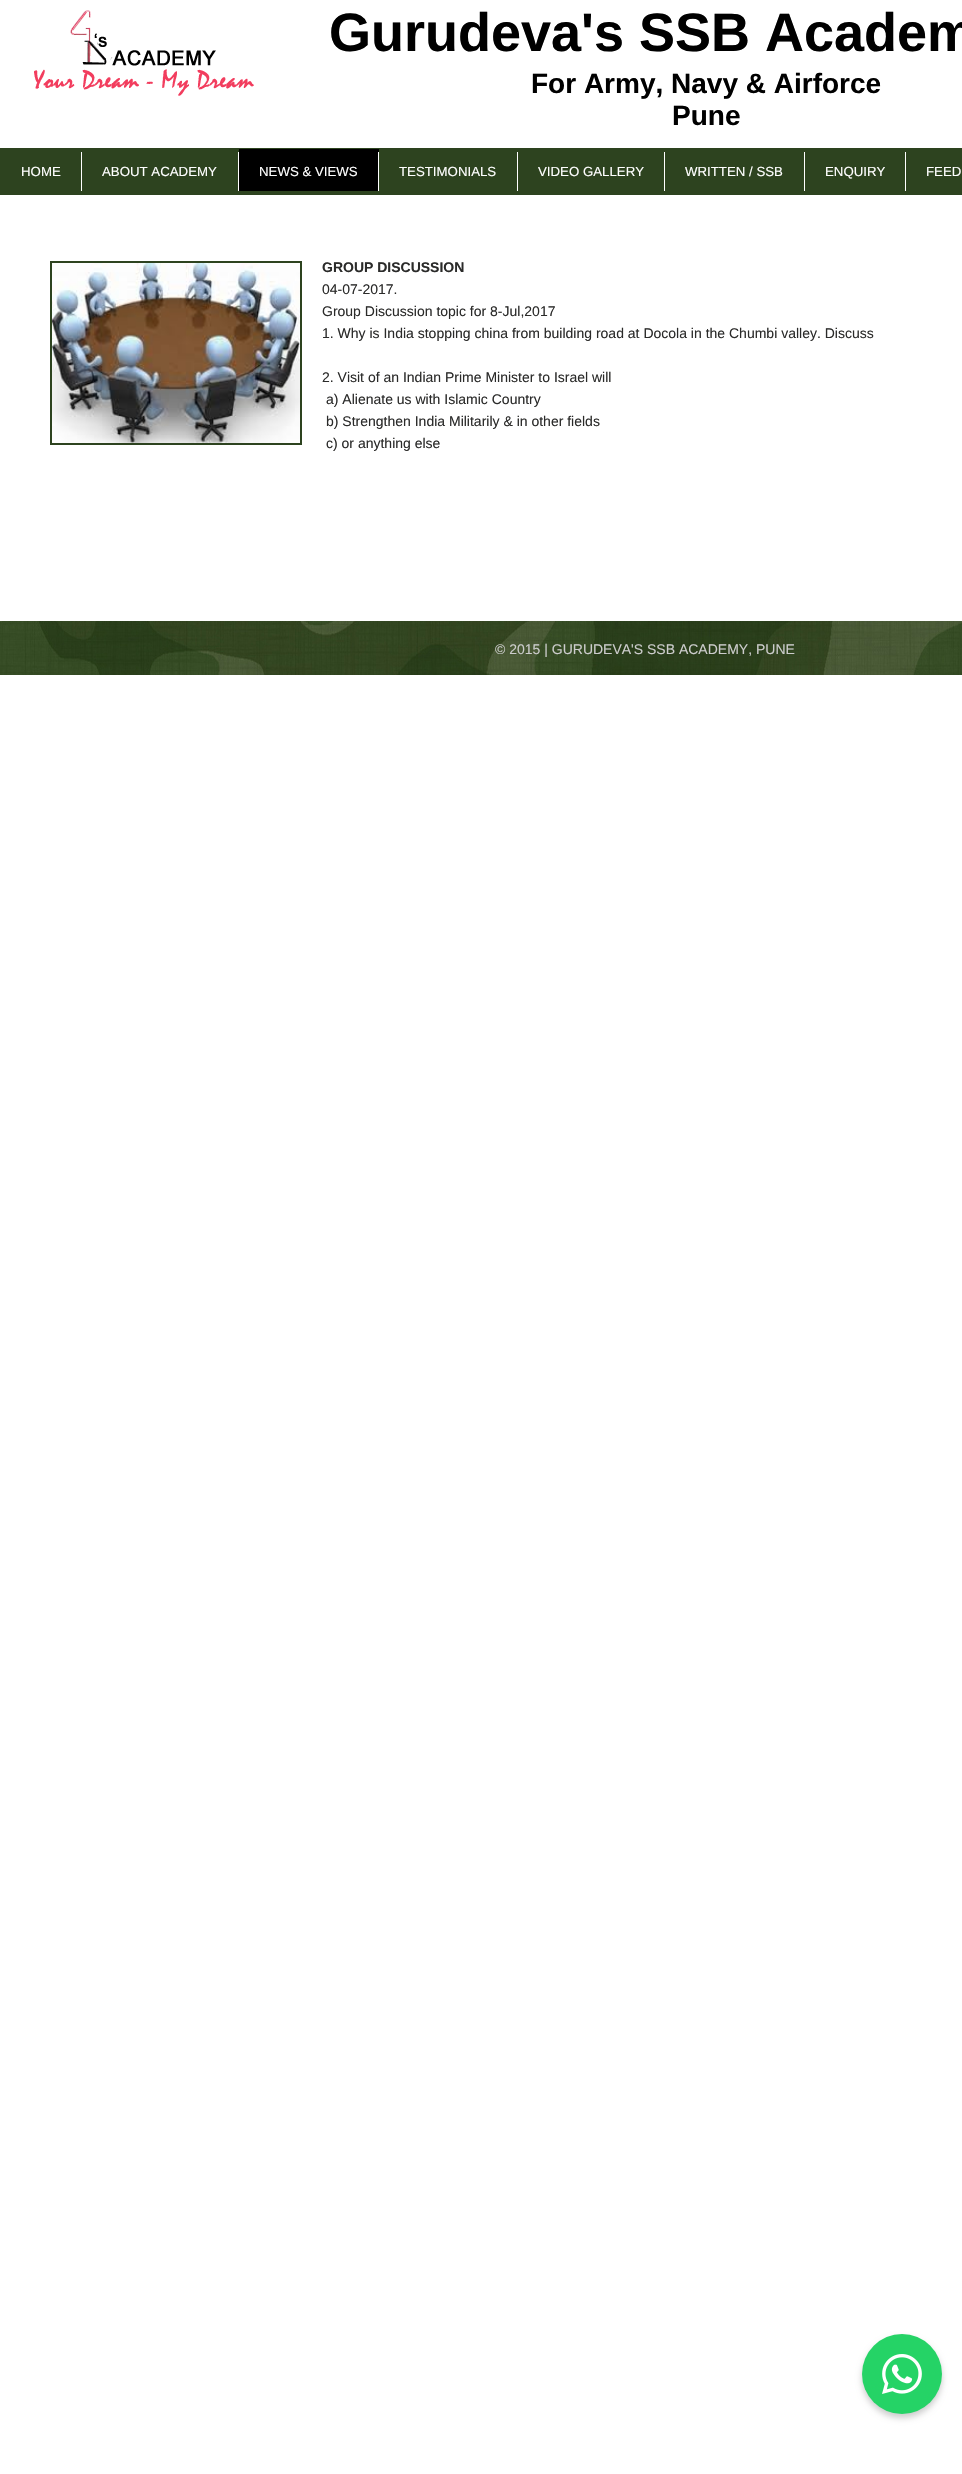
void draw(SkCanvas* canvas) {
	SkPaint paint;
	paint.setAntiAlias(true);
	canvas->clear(0xffffffff);
	canvas->drawImageRect(SkImages::DeferredFromEncodedData(SkData::MakeFromFileName("img1.png")), SkRect::MakeXYWH(34, 10, 220, 86), SkSamplingOptions());
	SkFont f1(fontMgr->matchFamilyStyle("Liberation Sans", SkFontStyle::Bold()), 54);
	f1.setSubpixel(true);
	paint.setColor(0xff000000);
	canvas->drawString("Gurudeva's SSB Academ", 329, 51, f1, paint);
	SkFont f2(fontMgr->matchFamilyStyle("Liberation Sans", SkFontStyle::Bold()), 28);
	f2.setSubpixel(true);
	canvas->drawString("For Army, Navy & Airforce", 531, 93, f2, paint);
	canvas->drawString("Pune", 672, 125, f2, paint);
	paint.setColor(0xff2d431f);
	canvas->drawRect(SkRect::MakeXYWH(0, 148, 962, 47), paint);
	paint.setColor(0xffffffff);
	canvas->drawRect(SkRect::MakeXYWH(81, 152, 1, 39), paint);
	SkFont f3(fontMgr->matchFamilyStyle("Liberation Sans", SkFontStyle::Normal()), 13.25);
	f3.setSubpixel(true);
	canvas->drawString("HOME", 21, 176, f3, paint);
	canvas->drawRect(SkRect::MakeXYWH(238, 152, 1, 39), paint);
	canvas->drawString("ABOUT ACADEMY", 102, 176, f3, paint);
	paint.setColor(0xff000000);
	canvas->drawRect(SkRect::MakeXYWH(239, 149, 140, 42), paint);
	paint.setColor(0xffffffff);
	canvas->drawRect(SkRect::MakeXYWH(378, 152, 1, 39), paint);
	canvas->drawString("NEWS & VIEWS", 259, 176, f3, paint);
	canvas->drawRect(SkRect::MakeXYWH(517, 152, 1, 39), paint);
	canvas->drawString("TESTIMONIALS", 399, 176, f3, paint);
	canvas->drawRect(SkRect::MakeXYWH(664, 152, 1, 39), paint);
	canvas->drawString("VIDEO GALLERY", 538, 176, f3, paint);
	canvas->drawRect(SkRect::MakeXYWH(804, 152, 1, 39), paint);
	canvas->drawString("WRITTEN / SSB", 685, 176, f3, paint);
	canvas->drawRect(SkRect::MakeXYWH(905, 152, 1, 39), paint);
	canvas->drawString("ENQUIRY", 825, 176, f3, paint);
	canvas->drawString("FEED", 926, 176, f3, paint);
	paint.setColor(0x33000000);
	paint.setMaskFilter(SkMaskFilter::MakeBlur(kNormal_SkBlurStyle, 3));
	canvas->drawRoundRect(SkRect::MakeXYWH(862, 2338, 80, 80), 40, 40, paint);
	paint.setMaskFilter(nullptr);
	paint.setColor(0xff25d366);
	canvas->drawCircle(902, 2374, 40, paint);
	canvas->drawImageRect(SkImages::DeferredFromEncodedData(SkData::MakeFromFileName("img2.png")), SkRect::MakeXYWH(882, 2354, 40, 40), SkSamplingOptions());
	paint.setStroke(true);
	paint.setStrokeWidth(2);
	paint.setColor(0xff2d431f);
	canvas->drawRect(SkRect::MakeXYWH(51, 262, 250, 182), paint);
	canvas->drawImageRect(SkImages::DeferredFromEncodedData(SkData::MakeFromFileName("img3.png")), SkRect::MakeXYWH(52, 263, 248, 180), SkSamplingOptions());
	SkFont f4(fontMgr->matchFamilyStyle("Liberation Sans", SkFontStyle::Bold()), 14);
	f4.setSubpixel(true);
	paint.setStroke(false);
	paint.setColor(0xff2b2b2a);
	canvas->drawString("GROUP DISCUSSION", 322, 272, f4, paint);
	SkFont f5(fontMgr->matchFamilyStyle("Liberation Sans", SkFontStyle::Normal()), 14);
	f5.setSubpixel(true);
	canvas->drawString("04-07-2017.", 322, 294, f5, paint);
	canvas->drawString("Group Discussion topic for 8-Jul,2017", 322, 316, f5, paint);
	canvas->drawString("1. Why is India stopping china from building road at Docola in the Chumbi valley. Discuss", 322, 338, f5, paint);
	canvas->drawString("2. Visit of an Indian Prime Minister to Israel will", 322, 382, f5, paint);
	canvas->drawString("a) Alienate us with Islamic Country", 326, 404, f5, paint);
	canvas->drawString("b) Strengthen India Militarily & in other fields", 326, 426, f5, paint);
	canvas->drawString("c) or anything else", 326, 448, f5, paint);
	canvas->drawImageRect(SkImages::DeferredFromEncodedData(SkData::MakeFromFileName("img4.png")), SkRect::MakeXYWH(0, 621, 962, 54), SkSamplingOptions());
	paint.setColor(0xffcccccc);
	canvas->drawString("© 2015 | GURUDEVA'S SSB ACADEMY, PUNE", 495, 654, f5, paint);
}
